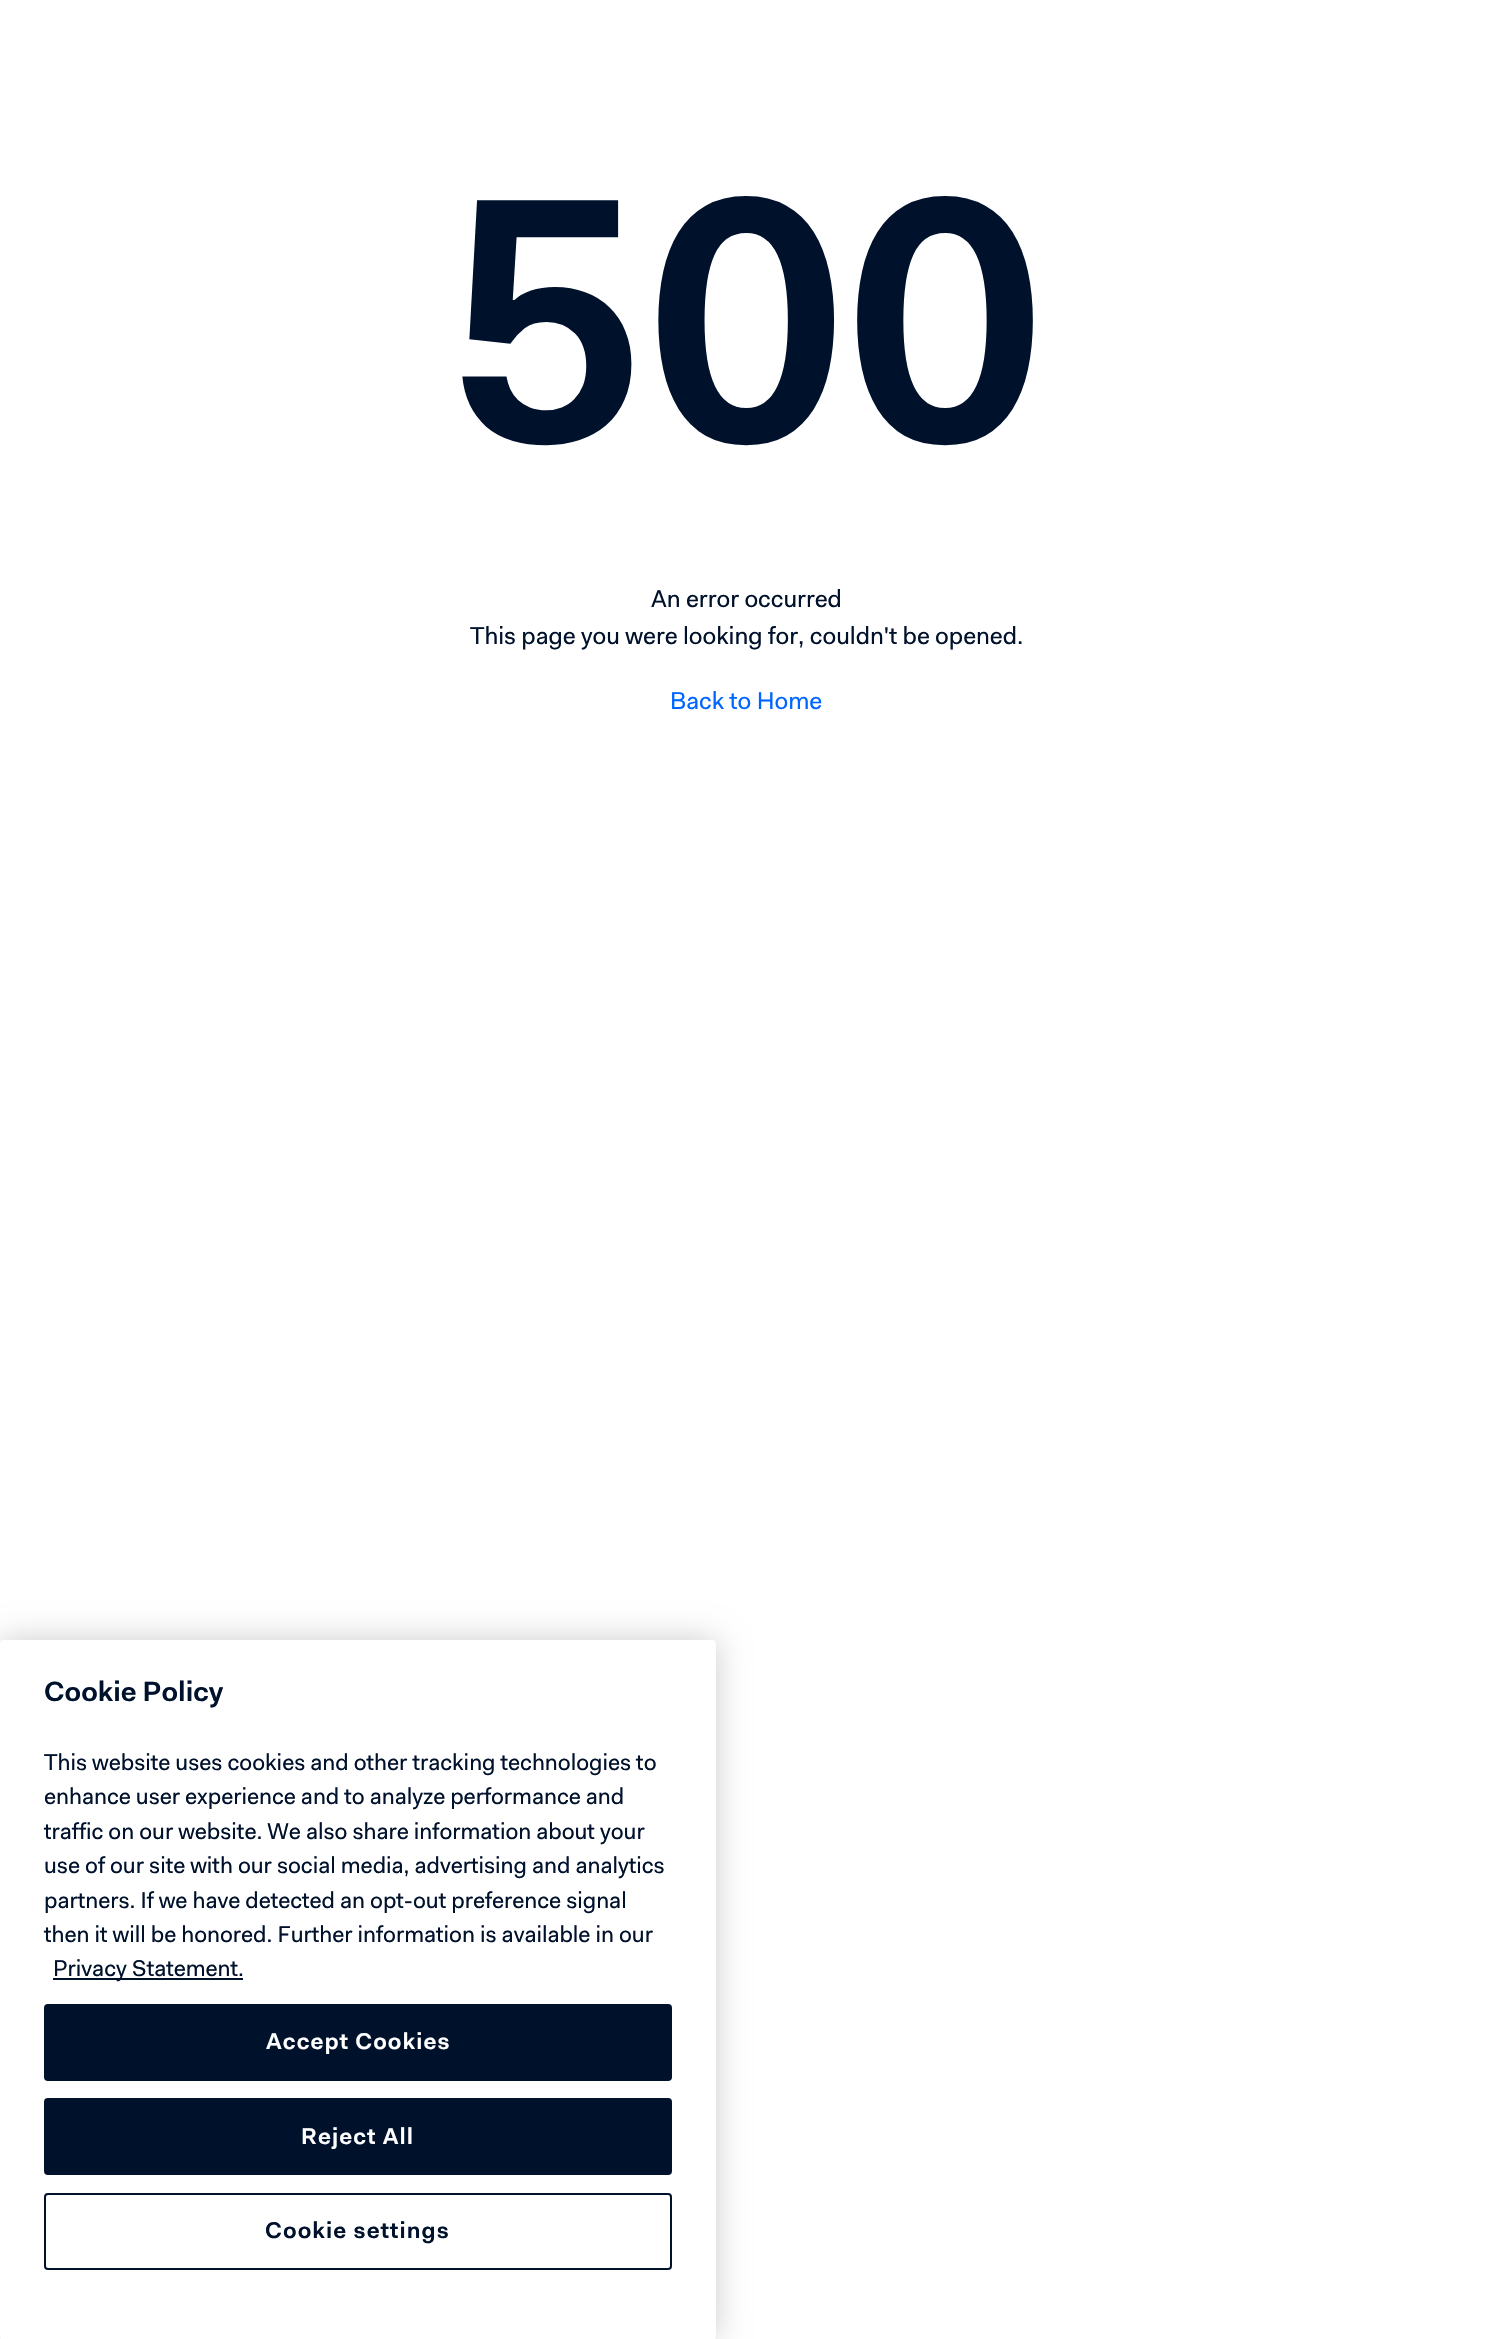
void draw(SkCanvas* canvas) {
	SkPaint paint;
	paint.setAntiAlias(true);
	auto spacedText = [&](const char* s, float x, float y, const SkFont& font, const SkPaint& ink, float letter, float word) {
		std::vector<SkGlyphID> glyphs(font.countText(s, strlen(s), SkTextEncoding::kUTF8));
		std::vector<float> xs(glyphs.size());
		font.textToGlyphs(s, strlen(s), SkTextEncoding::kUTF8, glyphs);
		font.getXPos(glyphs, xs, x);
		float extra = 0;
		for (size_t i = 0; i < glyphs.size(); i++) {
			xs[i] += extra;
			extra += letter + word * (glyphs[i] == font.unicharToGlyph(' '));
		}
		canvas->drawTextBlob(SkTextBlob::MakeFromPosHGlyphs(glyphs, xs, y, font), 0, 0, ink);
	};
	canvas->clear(0xffffffff);
	SkFont f1(fontMgr->matchFamilyStyle("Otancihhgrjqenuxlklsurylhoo", SkFontStyle(600, SkFontStyle::kNormal_Width, SkFontStyle::kUpright_Slant)), 350);
	f1.setSubpixel(true);
	paint.setColor(0xff00112c);
	canvas->drawString("500", 448, 441, f1, paint);
	SkFont f2(fontMgr->matchFamilyStyle("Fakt", SkFontStyle::Normal()), 24.5);
	f2.setSubpixel(true);
	canvas->drawString("An error occurred", 651, 607, f2, paint);
	canvas->drawString("This page you were looking for, couldn't be opened.", 470, 644, f2, paint);
	paint.setColor(0xff0066ff);
	canvas->drawString("Back to Home", 670, 709, f2, paint);
	paint.setColor(0x33000000);
	paint.setMaskFilter(SkMaskFilter::MakeBlur(kNormal_SkBlurStyle, 16));
	canvas->drawRoundRect(SkRect::MakeXYWH(0, 1640, 716, 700), 4, 4, paint);
	paint.setMaskFilter(nullptr);
	paint.setColor(0xffffffff);
	canvas->drawRoundRect(SkRect::MakeXYWH(0, 1640, 716, 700), 4, 4, paint);
	SkFont f3(fontMgr->matchFamilyStyle("Otancihhgrjqenuxlklsurylhoo", SkFontStyle(600, SkFontStyle::kNormal_Width, SkFontStyle::kUpright_Slant)), 28);
	f3.setSubpixel(true);
	paint.setColor(0xff00112c);
	canvas->drawString("Cookie Policy", 44, 1701, f3, paint);
	SkFont f4(fontMgr->matchFamilyStyle("Fakt", SkFontStyle::Normal()), 22.95);
	f4.setSubpixel(true);
	canvas->drawString("This website uses cookies and other tracking technologies to", 44, 1770, f4, paint);
	canvas->drawString("enhance user experience and to analyze performance and", 44, 1804, f4, paint);
	canvas->drawString("traffic on our website. We also share information about your", 44, 1839, f4, paint);
	canvas->drawString("use of our site with our social media, advertising and analytics", 44, 1873, f4, paint);
	canvas->drawString("partners. If we have detected an opt-out preference signal", 44, 1908, f4, paint);
	canvas->drawString("then it will be honored. Further information is available in our", 44, 1942, f4, paint);
	canvas->drawRect(SkRect::MakeXYWH(53, 1978, 190, 2), paint);
	canvas->drawString("Privacy Statement.", 53, 1976, f4, paint);
	canvas->drawRoundRect(SkRect::MakeXYWH(45, 2005, 626, 75), 3, 3, paint);
	paint.setStroke(true);
	paint.setStrokeWidth(2);
	canvas->drawRoundRect(SkRect::MakeXYWH(45, 2005, 626, 75), 3, 3, paint);
	SkFont f5(fontMgr->matchFamilyStyle("Otancihhgrjqenuxlklsurylhoo", SkFontStyle(600, SkFontStyle::kNormal_Width, SkFontStyle::kUpright_Slant)), 22.95);
	f5.setSubpixel(true);
	paint.setStroke(false);
	paint.setColor(0xffffffff);
	spacedText("Accept Cookies", 266, 2049, f5, paint, 1.1, 0);
	paint.setColor(0xff00112c);
	canvas->drawRoundRect(SkRect::MakeXYWH(45, 2099, 626, 75), 3, 3, paint);
	paint.setStroke(true);
	canvas->drawRoundRect(SkRect::MakeXYWH(45, 2099, 626, 75), 3, 3, paint);
	paint.setStroke(false);
	paint.setColor(0xffffffff);
	spacedText("Reject All", 301, 2144, f5, paint, 1.1, 0);
	paint.setStroke(true);
	paint.setColor(0xff00112c);
	canvas->drawRoundRect(SkRect::MakeXYWH(45, 2194, 626, 75), 3, 3, paint);
	paint.setStroke(false);
	spacedText("Cookie settings", 265, 2238, f5, paint, 1.1, 0);
}
